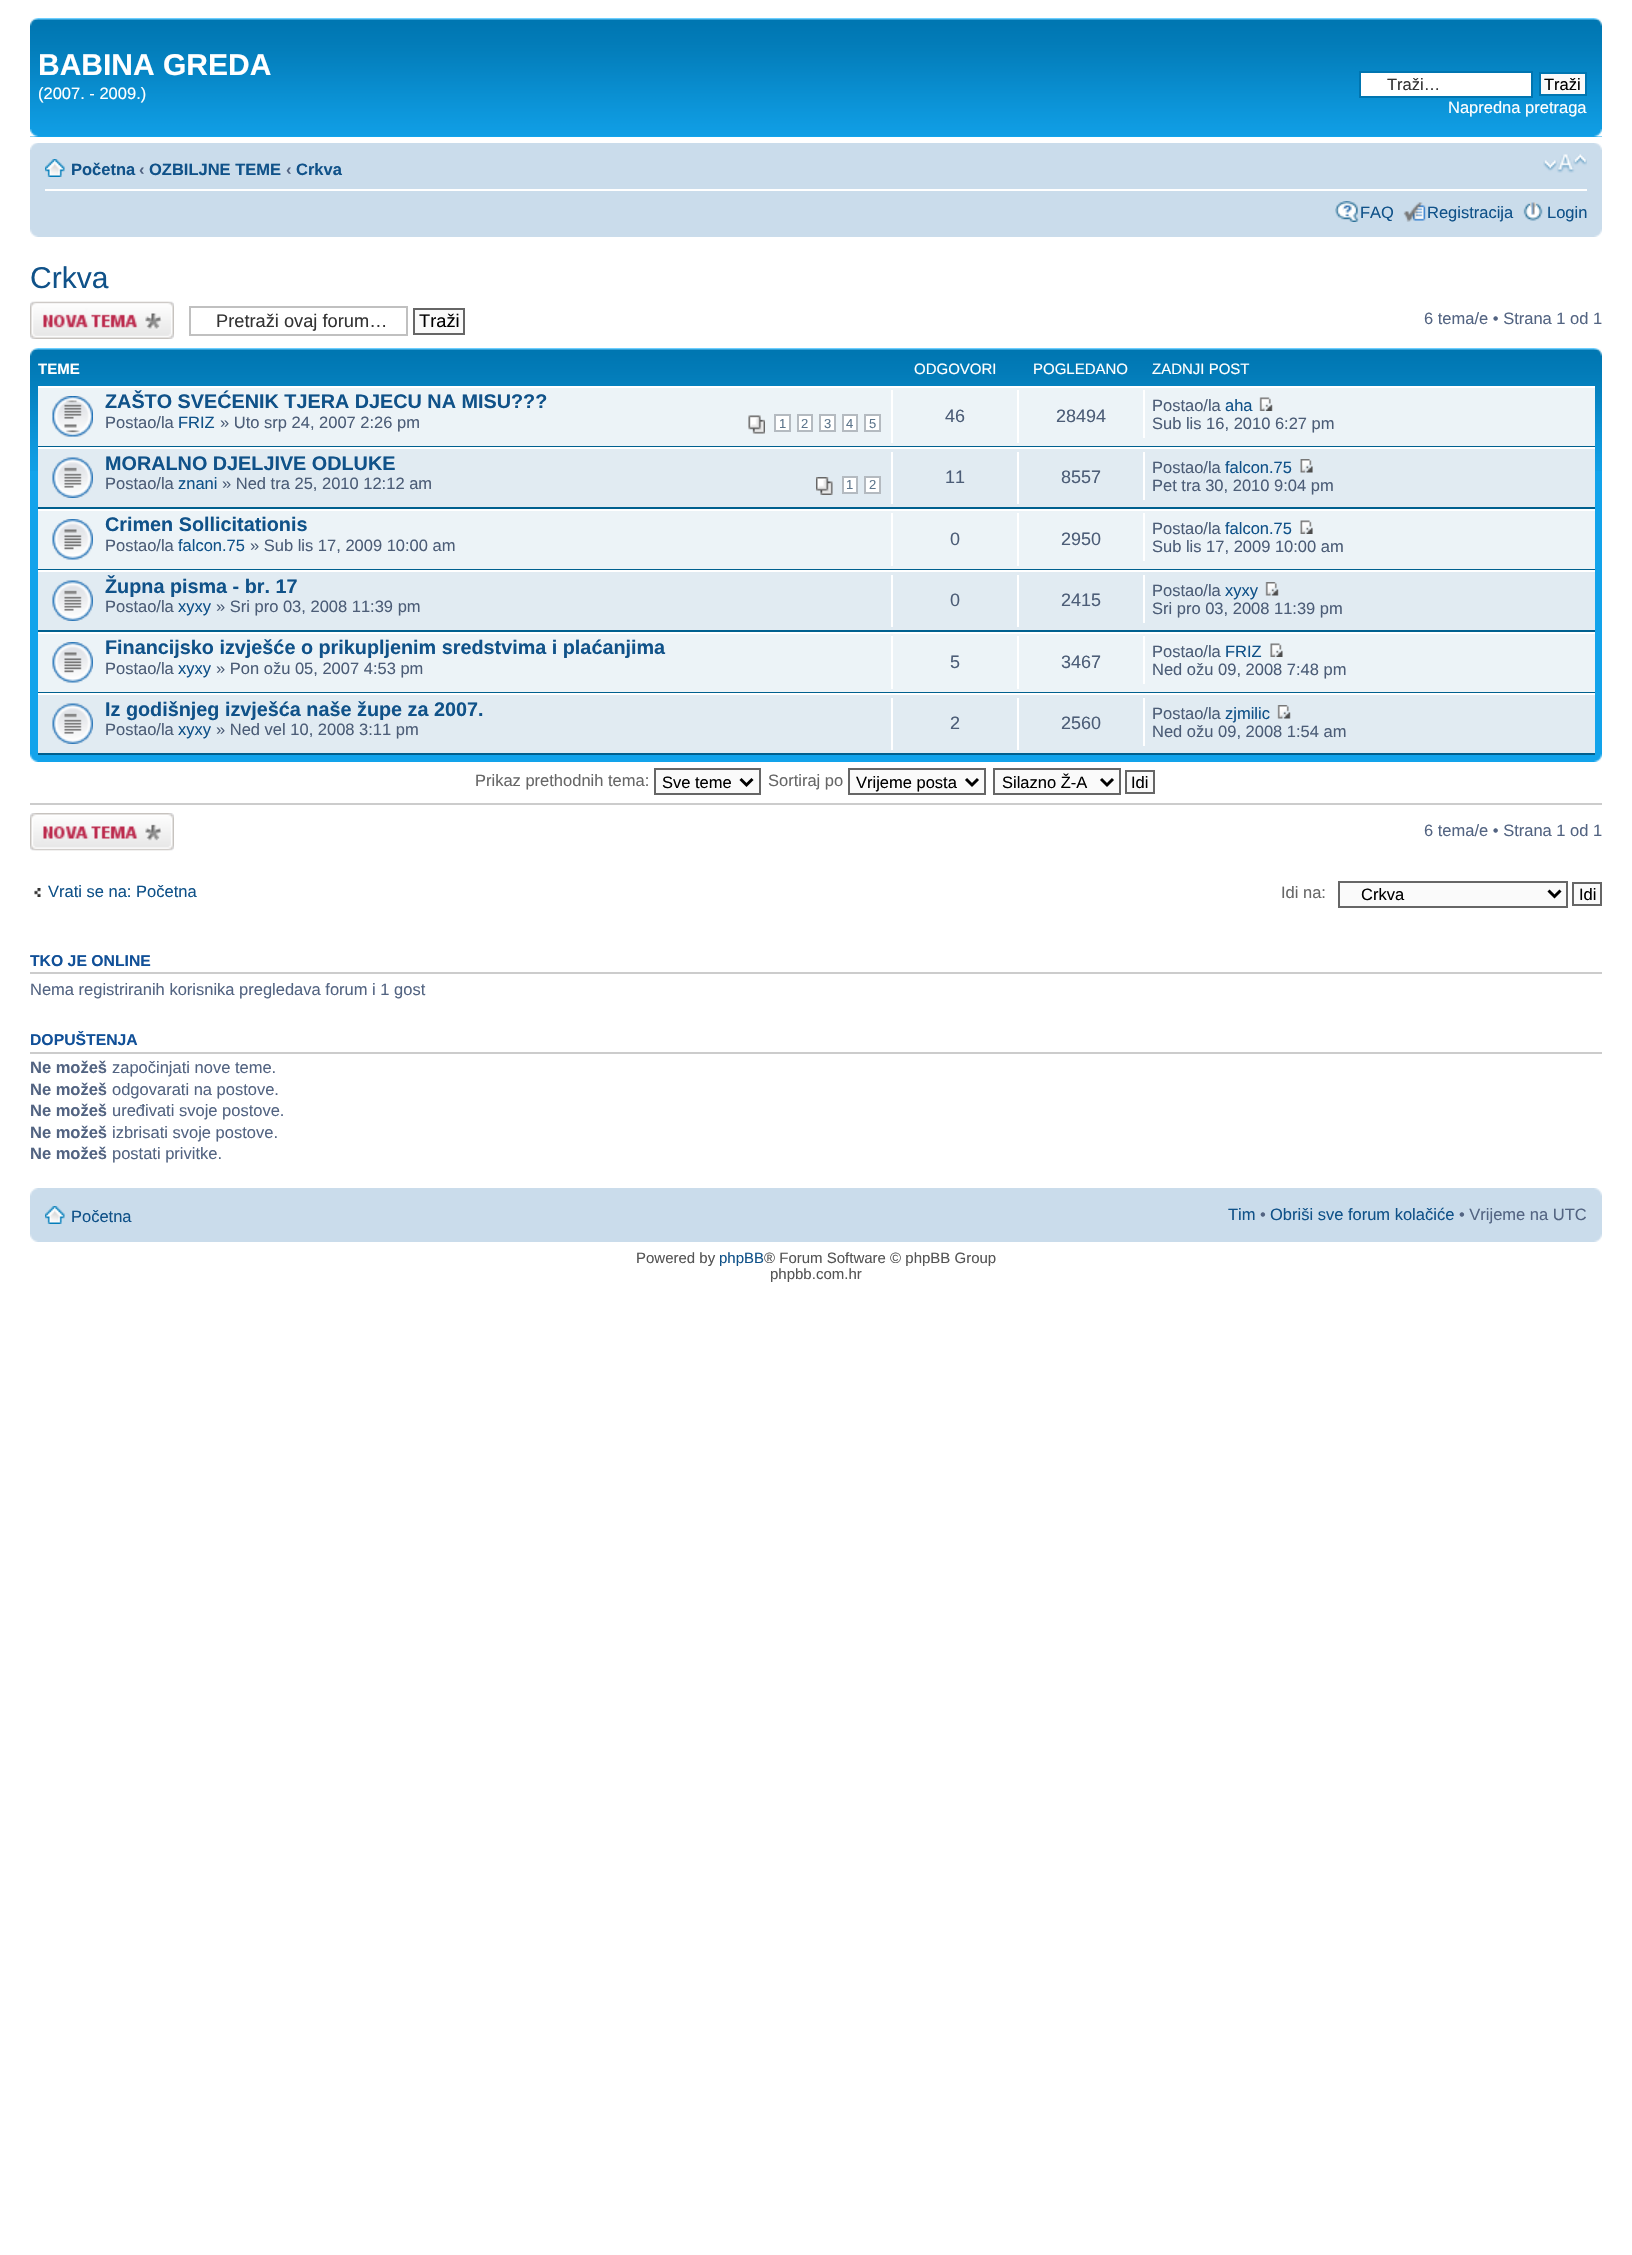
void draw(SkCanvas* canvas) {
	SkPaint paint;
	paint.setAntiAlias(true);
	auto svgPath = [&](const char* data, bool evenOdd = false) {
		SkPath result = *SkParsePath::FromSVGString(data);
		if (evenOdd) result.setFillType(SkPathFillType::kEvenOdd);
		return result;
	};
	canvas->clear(0xffffffff);
	paint.setColor(0xff12a3eb);
	canvas->drawRect(SkRect::MakeXYWH(30, 136, 1572, 1), paint);
	canvas->drawImageRect(SkImages::DeferredFromEncodedData(SkData::MakeFromFileName("img1.png")), SkRect::MakeXYWH(30, 18, 1572, 118), SkSamplingOptions());
	canvas->drawImageRect(SkImages::DeferredFromEncodedData(SkData::MakeFromFileName("img2.png")), SkRect::MakeXYWH(30, 18, 8, 8), SkSamplingOptions());
	canvas->drawImageRect(SkImages::DeferredFromEncodedData(SkData::MakeFromFileName("img3.png")), SkRect::MakeXYWH(1594, 18, 8, 8), SkSamplingOptions());
	SkFont f1(fontMgr->matchFamilyStyle("Liberation Sans", SkFontStyle::Bold()), 30);
	f1.setSubpixel(true);
	paint.setColor(0xffffffff);
	canvas->drawString("BABINA GREDA", 38, 75, f1, paint);
	SkFont f2(fontMgr->matchFamilyStyle("Liberation Sans", SkFontStyle::Normal()), 16.5);
	f2.setSubpixel(true);
	canvas->drawString("(2007. - 2009.)", 38, 99, f2, paint);
	canvas->drawRect(SkRect::MakeXYWH(1360, 72, 172, 25), paint);
	paint.setStroke(true);
	paint.setStrokeWidth(2);
	paint.setColor(0xff0075b0);
	canvas->drawRect(SkRect::MakeXYWH(1360, 72, 172, 25), paint);
	paint.setStroke(false);
	paint.setColor(0xff333333);
	canvas->drawString("Traži…", 1387, 90, f2, paint);
	paint.setColor(0xfffafafa);
	canvas->drawRect(SkRect::MakeXYWH(1540, 73, 46, 22), paint);
	paint.setStroke(true);
	paint.setColor(0xff0075b0);
	canvas->drawRect(SkRect::MakeXYWH(1540, 73, 46, 22), paint);
	paint.setStroke(false);
	paint.setColor(0xff000000);
	canvas->drawString("Traži", 1544, 90, f2, paint);
	paint.setColor(0xffffffff);
	canvas->drawString("Napredna pretraga", 1448, 113, f2, paint);
	canvas->drawImageRect(SkImages::DeferredFromEncodedData(SkData::MakeFromFileName("img4.png")), SkRect::MakeXYWH(30, 129, 8, 8), SkSamplingOptions());
	canvas->drawImageRect(SkImages::DeferredFromEncodedData(SkData::MakeFromFileName("img5.png")), SkRect::MakeXYWH(1594, 129, 8, 8), SkSamplingOptions());
	paint.setColor(0xffcadceb);
	canvas->drawRect(SkRect::MakeXYWH(30, 143, 1572, 94), paint);
	canvas->drawImageRect(SkImages::DeferredFromEncodedData(SkData::MakeFromFileName("img6.png")), SkRect::MakeXYWH(30, 143, 8, 7), SkSamplingOptions());
	canvas->drawImageRect(SkImages::DeferredFromEncodedData(SkData::MakeFromFileName("img7.png")), SkRect::MakeXYWH(1594, 143, 8, 7), SkSamplingOptions());
	paint.setColor(0xffffffff);
	canvas->drawRect(SkRect::MakeXYWH(45, 189, 1542, 2), paint);
	canvas->drawImageRect(SkImages::DeferredFromEncodedData(SkData::MakeFromFileName("img8.png")), SkRect::MakeXYWH(45, 159, 20, 18), SkSamplingOptions());
	SkFont f3(fontMgr->matchFamilyStyle("Liberation Sans", SkFontStyle::Bold()), 16.5);
	f3.setSubpixel(true);
	paint.setColor(0xff105289);
	canvas->drawString("Početna", 71, 175, f3, paint);
	paint.setColor(0xff536482);
	canvas->drawString("‹", 139, 175, f3, paint);
	paint.setColor(0xff105289);
	canvas->drawString("OZBILJNE TEME", 149, 175, f3, paint);
	paint.setColor(0xff536482);
	canvas->drawString("‹", 286, 175, f3, paint);
	paint.setColor(0xff105289);
	canvas->drawString("Crkva", 296, 175, f3, paint);
	canvas->drawImageRect(SkImages::DeferredFromEncodedData(SkData::MakeFromFileName("img9.png")), SkRect::MakeXYWH(1543, 154, 44, 19), SkSamplingOptions());
	canvas->drawImageRect(SkImages::DeferredFromEncodedData(SkData::MakeFromFileName("img10.png")), SkRect::MakeXYWH(1335, 201, 24, 21), SkSamplingOptions());
	canvas->drawString("FAQ", 1360, 218, f2, paint);
	canvas->drawImageRect(SkImages::DeferredFromEncodedData(SkData::MakeFromFileName("img11.png")), SkRect::MakeXYWH(1403, 202, 23, 20), SkSamplingOptions());
	canvas->drawString("Registracija", 1427, 218, f2, paint);
	canvas->drawImageRect(SkImages::DeferredFromEncodedData(SkData::MakeFromFileName("img12.png")), SkRect::MakeXYWH(1523, 202, 20, 19), SkSamplingOptions());
	canvas->drawString("Login", 1547, 218, f2, paint);
	canvas->drawImageRect(SkImages::DeferredFromEncodedData(SkData::MakeFromFileName("img13.png")), SkRect::MakeXYWH(30, 229, 8, 8), SkSamplingOptions());
	canvas->drawImageRect(SkImages::DeferredFromEncodedData(SkData::MakeFromFileName("img14.png")), SkRect::MakeXYWH(1594, 229, 8, 8), SkSamplingOptions());
	SkFont f4(fontMgr->matchFamilyStyle("Liberation Sans", SkFontStyle::Normal()), 30);
	f4.setSubpixel(true);
	canvas->drawString("Crkva", 30, 288, f4, paint);
	canvas->drawImageRect(SkImages::DeferredFromEncodedData(SkData::MakeFromFileName("img15.png")), SkRect::MakeXYWH(30, 301, 144, 38), SkSamplingOptions());
	paint.setStroke(true);
	paint.setColor(0xffc0c0c0);
	canvas->drawRect(SkRect::MakeXYWH(190, 307, 217, 28), paint);
	SkFont f5(fontMgr->matchFamilyStyle("Liberation Sans", SkFontStyle::Normal()), 18.25);
	f5.setSubpixel(true);
	paint.setStroke(false);
	paint.setColor(0xff333333);
	canvas->drawString("Pretraži ovaj forum…", 216, 327, f5, paint);
	paint.setColor(0xfffafafa);
	canvas->drawRect(SkRect::MakeXYWH(414, 309, 50, 25), paint);
	paint.setStroke(true);
	paint.setColor(0xff666666);
	canvas->drawRect(SkRect::MakeXYWH(414, 309, 50, 25), paint);
	paint.setStroke(false);
	paint.setColor(0xff000000);
	canvas->drawString("Traži", 419, 327, f5, paint);
	paint.setColor(0xff536482);
	canvas->drawString("6 tema/e • Strana 1 od 1", 1424, 324, f2, paint);
	paint.setColor(0xff12a3eb);
	canvas->drawRect(SkRect::MakeXYWH(30, 471, 1572, 291), paint);
	canvas->drawImageRect(SkImages::DeferredFromEncodedData(SkData::MakeFromFileName("img16.png")), SkRect::MakeXYWH(30, 348, 1572, 123), SkSamplingOptions());
	canvas->drawImageRect(SkImages::DeferredFromEncodedData(SkData::MakeFromFileName("img2.png")), SkRect::MakeXYWH(30, 348, 8, 8), SkSamplingOptions());
	canvas->drawImageRect(SkImages::DeferredFromEncodedData(SkData::MakeFromFileName("img17.png")), SkRect::MakeXYWH(1594, 348, 8, 8), SkSamplingOptions());
	canvas->save();
	canvas->clipRect(SkRect::MakeXYWH(38, 356, 1557, 30));
	SkFont f6(fontMgr->matchFamilyStyle("Liberation Sans", SkFontStyle::Bold()), 15);
	f6.setSubpixel(true);
	paint.setColor(0xffffffff);
	canvas->drawString("TEME", 38, 374, f6, paint);
	canvas->restore();
	SkFont f7(fontMgr->matchFamilyStyle("Liberation Sans", SkFontStyle::Normal()), 15);
	f7.setSubpixel(true);
	canvas->drawString("ODGOVORI", 914, 374, f7, paint);
	canvas->drawString("POGLEDANO", 1033, 374, f7, paint);
	canvas->drawString("ZADNJI POST", 1152, 374, f7, paint);
	paint.setColor(0xffecf3f7);
	canvas->drawRect(SkRect::MakeXYWH(38, 388, 1557, 58), paint);
	paint.setColor(0xffffffff);
	canvas->drawRect(SkRect::MakeXYWH(38, 386, 1557, 2), paint);
	paint.setColor(0xff00608f);
	canvas->drawRect(SkRect::MakeXYWH(38, 446, 1557, 1), paint);
	canvas->drawImageRect(SkImages::DeferredFromEncodedData(SkData::MakeFromFileName("img18.png")), SkRect::MakeXYWH(52, 396, 41, 41), SkSamplingOptions());
	SkFont f8(fontMgr->matchFamilyStyle("Liberation Sans", SkFontStyle::Bold()), 19.8);
	f8.setSubpixel(true);
	paint.setColor(0xff105289);
	canvas->drawString("ZAŠTO SVEĆENIK TJERA DJECU NA MISU?\077?", 105, 408, f8, paint);
	paint.setColor(0xff4c5d77);
	canvas->drawString("Postao/la", 105, 428, f2, paint);
	paint.setColor(0xff105289);
	canvas->drawString("FRIZ", 178, 428, f2, paint);
	paint.setColor(0xff4c5d77);
	canvas->drawString("» Uto srp 24, 2007 2:26 pm", 220, 428, f2, paint);
	canvas->drawImageRect(SkImages::DeferredFromEncodedData(SkData::MakeFromFileName("img19.png")), SkRect::MakeXYWH(748, 415, 17, 19), SkSamplingOptions());
	paint.setColor(0xffffffff);
	canvas->drawRect(SkRect::MakeXYWH(775, 415, 15, 16), paint);
	paint.setStroke(true);
	paint.setColor(0xffb4bac0);
	canvas->drawRect(SkRect::MakeXYWH(775, 415, 15, 16), paint);
	SkFont f9(fontMgr->matchFamilyStyle("Liberation Sans", SkFontStyle::Normal()), 13);
	f9.setSubpixel(true);
	paint.setStroke(false);
	paint.setColor(0xff5c758c);
	canvas->drawString("1", 779, 428, f9, paint);
	paint.setColor(0xffffffff);
	canvas->drawRect(SkRect::MakeXYWH(798, 415, 14, 16), paint);
	paint.setStroke(true);
	paint.setColor(0xffb4bac0);
	canvas->drawRect(SkRect::MakeXYWH(798, 415, 14, 16), paint);
	paint.setStroke(false);
	paint.setColor(0xff5c758c);
	canvas->drawString("2", 801, 428, f9, paint);
	paint.setColor(0xffffffff);
	canvas->drawRect(SkRect::MakeXYWH(820, 415, 15, 16), paint);
	paint.setStroke(true);
	paint.setColor(0xffb4bac0);
	canvas->drawRect(SkRect::MakeXYWH(820, 415, 15, 16), paint);
	paint.setStroke(false);
	paint.setColor(0xff5c758c);
	canvas->drawString("3", 824, 428, f9, paint);
	paint.setColor(0xffffffff);
	canvas->drawRect(SkRect::MakeXYWH(843, 415, 14, 16), paint);
	paint.setStroke(true);
	paint.setColor(0xffb4bac0);
	canvas->drawRect(SkRect::MakeXYWH(843, 415, 14, 16), paint);
	paint.setStroke(false);
	paint.setColor(0xff5c758c);
	canvas->drawString("4", 846, 428, f9, paint);
	paint.setColor(0xffffffff);
	canvas->drawRect(SkRect::MakeXYWH(865, 415, 15, 16), paint);
	paint.setStroke(true);
	paint.setColor(0xffb4bac0);
	canvas->drawRect(SkRect::MakeXYWH(865, 415, 15, 16), paint);
	paint.setStroke(false);
	paint.setColor(0xff5c758c);
	canvas->drawString("5", 869, 428, f9, paint);
	paint.setColor(0xffffffff);
	canvas->drawRect(SkRect::MakeXYWH(891, 390, 2, 53), paint);
	SkFont f10(fontMgr->matchFamilyStyle("Liberation Sans", SkFontStyle::Normal()), 18);
	f10.setSubpixel(true);
	paint.setColor(0xff4c5d77);
	canvas->drawString("46", 945, 422, f10, paint);
	paint.setColor(0xffffffff);
	canvas->drawRect(SkRect::MakeXYWH(1017, 390, 2, 53), paint);
	paint.setColor(0xff4c5d77);
	canvas->drawString("28494", 1056, 422, f10, paint);
	paint.setColor(0xffffffff);
	canvas->drawRect(SkRect::MakeXYWH(1143, 390, 2, 48), paint);
	paint.setColor(0xff4c5d77);
	canvas->drawString("Postao/la", 1152, 411, f2, paint);
	paint.setColor(0xff105289);
	canvas->drawString("aha", 1225, 411, f2, paint);
	canvas->drawImageRect(SkImages::DeferredFromEncodedData(SkData::MakeFromFileName("img20.png")), SkRect::MakeXYWH(1259, 397, 14, 14), SkSamplingOptions());
	paint.setColor(0xff4c5d77);
	canvas->drawString("Sub lis 16, 2010 6:27 pm", 1152, 429, f2, paint);
	paint.setColor(0xffe1ebf2);
	canvas->drawRect(SkRect::MakeXYWH(38, 449, 1557, 58), paint);
	paint.setColor(0xffffffff);
	canvas->drawRect(SkRect::MakeXYWH(38, 447, 1557, 2), paint);
	paint.setColor(0xff00608f);
	canvas->drawRect(SkRect::MakeXYWH(38, 507, 1557, 2), paint);
	canvas->drawImageRect(SkImages::DeferredFromEncodedData(SkData::MakeFromFileName("img21.png")), SkRect::MakeXYWH(52, 457, 41, 41), SkSamplingOptions());
	paint.setColor(0xff105289);
	canvas->drawString("MORALNO DJELJIVE ODLUKE", 105, 470, f8, paint);
	paint.setColor(0xff4c5d77);
	canvas->drawString("Postao/la", 105, 489, f2, paint);
	paint.setColor(0xff105289);
	canvas->drawString("znani", 178, 489, f2, paint);
	paint.setColor(0xff4c5d77);
	canvas->drawString("» Ned tra 25, 2010 12:12 am", 222, 489, f2, paint);
	canvas->drawImageRect(SkImages::DeferredFromEncodedData(SkData::MakeFromFileName("img22.png")), SkRect::MakeXYWH(816, 477, 17, 18), SkSamplingOptions());
	paint.setColor(0xffffffff);
	canvas->drawRect(SkRect::MakeXYWH(843, 477, 14, 16), paint);
	paint.setStroke(true);
	paint.setColor(0xffb4bac0);
	canvas->drawRect(SkRect::MakeXYWH(843, 477, 14, 16), paint);
	paint.setStroke(false);
	paint.setColor(0xff5c758c);
	canvas->drawString("1", 846, 489, f9, paint);
	paint.setColor(0xffffffff);
	canvas->drawRect(SkRect::MakeXYWH(865, 477, 15, 16), paint);
	paint.setStroke(true);
	paint.setColor(0xffb4bac0);
	canvas->drawRect(SkRect::MakeXYWH(865, 477, 15, 16), paint);
	paint.setStroke(false);
	paint.setColor(0xff5c758c);
	canvas->drawString("2", 869, 489, f9, paint);
	paint.setColor(0xffffffff);
	canvas->drawRect(SkRect::MakeXYWH(891, 452, 2, 52), paint);
	paint.setColor(0xff4c5d77);
	canvas->drawString("11", 945, 483, f10, paint);
	paint.setColor(0xffffffff);
	canvas->drawRect(SkRect::MakeXYWH(1017, 452, 2, 52), paint);
	paint.setColor(0xff4c5d77);
	canvas->drawString("8557", 1061, 483, f10, paint);
	paint.setColor(0xffffffff);
	canvas->drawRect(SkRect::MakeXYWH(1143, 452, 2, 48), paint);
	paint.setColor(0xff4c5d77);
	canvas->drawString("Postao/la", 1152, 473, f2, paint);
	paint.setColor(0xff105289);
	canvas->drawString("falcon.75", 1225, 473, f2, paint);
	canvas->drawImageRect(SkImages::DeferredFromEncodedData(SkData::MakeFromFileName("img23.png")), SkRect::MakeXYWH(1300, 459, 13, 14), SkSamplingOptions());
	paint.setColor(0xff4c5d77);
	canvas->drawString("Pet tra 30, 2010 9:04 pm", 1152, 491, f2, paint);
	paint.setColor(0xffecf3f7);
	canvas->drawRect(SkRect::MakeXYWH(38, 511, 1557, 58), paint);
	paint.setColor(0xffffffff);
	canvas->drawRect(SkRect::MakeXYWH(38, 509, 1557, 2), paint);
	paint.setColor(0xff00608f);
	canvas->drawRect(SkRect::MakeXYWH(38, 569, 1557, 1), paint);
	canvas->drawImageRect(SkImages::DeferredFromEncodedData(SkData::MakeFromFileName("img24.png")), SkRect::MakeXYWH(52, 519, 41, 41), SkSamplingOptions());
	paint.setColor(0xff105289);
	canvas->drawString("Crimen Sollicitationis", 105, 531, f8, paint);
	paint.setColor(0xff4c5d77);
	canvas->drawString("Postao/la", 105, 551, f2, paint);
	paint.setColor(0xff105289);
	canvas->drawString("falcon.75", 178, 551, f2, paint);
	paint.setColor(0xff4c5d77);
	canvas->drawString("» Sub lis 17, 2009 10:00 am", 250, 551, f2, paint);
	paint.setColor(0xffffffff);
	canvas->drawRect(SkRect::MakeXYWH(891, 513, 2, 53), paint);
	paint.setColor(0xff4c5d77);
	canvas->drawString("0", 950, 545, f10, paint);
	paint.setColor(0xffffffff);
	canvas->drawRect(SkRect::MakeXYWH(1017, 513, 2, 53), paint);
	paint.setColor(0xff4c5d77);
	canvas->drawString("2950", 1061, 545, f10, paint);
	paint.setColor(0xffffffff);
	canvas->drawRect(SkRect::MakeXYWH(1143, 513, 2, 48), paint);
	paint.setColor(0xff4c5d77);
	canvas->drawString("Postao/la", 1152, 534, f2, paint);
	paint.setColor(0xff105289);
	canvas->drawString("falcon.75", 1225, 534, f2, paint);
	canvas->drawImageRect(SkImages::DeferredFromEncodedData(SkData::MakeFromFileName("img25.png")), SkRect::MakeXYWH(1300, 520, 13, 14), SkSamplingOptions());
	paint.setColor(0xff4c5d77);
	canvas->drawString("Sub lis 17, 2009 10:00 am", 1152, 552, f2, paint);
	paint.setColor(0xffe1ebf2);
	canvas->drawRect(SkRect::MakeXYWH(38, 572, 1557, 58), paint);
	paint.setColor(0xffffffff);
	canvas->drawRect(SkRect::MakeXYWH(38, 570, 1557, 2), paint);
	paint.setColor(0xff00608f);
	canvas->drawRect(SkRect::MakeXYWH(38, 630, 1557, 2), paint);
	canvas->drawImageRect(SkImages::DeferredFromEncodedData(SkData::MakeFromFileName("img21.png")), SkRect::MakeXYWH(52, 580, 41, 41), SkSamplingOptions());
	paint.setColor(0xff105289);
	canvas->drawString("Župna pisma - br. 17", 105, 593, f8, paint);
	paint.setColor(0xff4c5d77);
	canvas->drawString("Postao/la", 105, 612, f2, paint);
	paint.setColor(0xff105289);
	canvas->drawString("xyxy", 178, 612, f2, paint);
	paint.setColor(0xff4c5d77);
	canvas->drawString("» Sri pro 03, 2008 11:39 pm", 216, 612, f2, paint);
	paint.setColor(0xffffffff);
	canvas->drawRect(SkRect::MakeXYWH(891, 575, 2, 52), paint);
	paint.setColor(0xff4c5d77);
	canvas->drawString("0", 950, 606, f10, paint);
	paint.setColor(0xffffffff);
	canvas->drawRect(SkRect::MakeXYWH(1017, 575, 2, 52), paint);
	paint.setColor(0xff4c5d77);
	canvas->drawString("2415", 1061, 606, f10, paint);
	paint.setColor(0xffffffff);
	canvas->drawRect(SkRect::MakeXYWH(1143, 575, 2, 48), paint);
	paint.setColor(0xff4c5d77);
	canvas->drawString("Postao/la", 1152, 596, f2, paint);
	paint.setColor(0xff105289);
	canvas->drawString("xyxy", 1225, 596, f2, paint);
	canvas->drawImageRect(SkImages::DeferredFromEncodedData(SkData::MakeFromFileName("img26.png")), SkRect::MakeXYWH(1265, 582, 14, 14), SkSamplingOptions());
	paint.setColor(0xff4c5d77);
	canvas->drawString("Sri pro 03, 2008 11:39 pm", 1152, 614, f2, paint);
	paint.setColor(0xffecf3f7);
	canvas->drawRect(SkRect::MakeXYWH(38, 634, 1557, 58), paint);
	paint.setColor(0xffffffff);
	canvas->drawRect(SkRect::MakeXYWH(38, 632, 1557, 2), paint);
	paint.setColor(0xff00608f);
	canvas->drawRect(SkRect::MakeXYWH(38, 692, 1557, 1), paint);
	canvas->drawImageRect(SkImages::DeferredFromEncodedData(SkData::MakeFromFileName("img24.png")), SkRect::MakeXYWH(52, 642, 41, 41), SkSamplingOptions());
	paint.setColor(0xff105289);
	canvas->drawString("Financijsko izvješće o prikupljenim sredstvima i plaćanjima", 105, 654, f8, paint);
	paint.setColor(0xff4c5d77);
	canvas->drawString("Postao/la", 105, 674, f2, paint);
	paint.setColor(0xff105289);
	canvas->drawString("xyxy", 178, 674, f2, paint);
	paint.setColor(0xff4c5d77);
	canvas->drawString("» Pon ožu 05, 2007 4:53 pm", 216, 674, f2, paint);
	paint.setColor(0xffffffff);
	canvas->drawRect(SkRect::MakeXYWH(891, 636, 2, 53), paint);
	paint.setColor(0xff4c5d77);
	canvas->drawString("5", 950, 668, f10, paint);
	paint.setColor(0xffffffff);
	canvas->drawRect(SkRect::MakeXYWH(1017, 636, 2, 53), paint);
	paint.setColor(0xff4c5d77);
	canvas->drawString("3467", 1061, 668, f10, paint);
	paint.setColor(0xffffffff);
	canvas->drawRect(SkRect::MakeXYWH(1143, 636, 2, 48), paint);
	paint.setColor(0xff4c5d77);
	canvas->drawString("Postao/la", 1152, 657, f2, paint);
	paint.setColor(0xff105289);
	canvas->drawString("FRIZ", 1225, 657, f2, paint);
	canvas->drawImageRect(SkImages::DeferredFromEncodedData(SkData::MakeFromFileName("img27.png")), SkRect::MakeXYWH(1270, 643, 13, 14), SkSamplingOptions());
	paint.setColor(0xff4c5d77);
	canvas->drawString("Ned ožu 09, 2008 7:48 pm", 1152, 675, f2, paint);
	paint.setColor(0xffe1ebf2);
	canvas->drawRect(SkRect::MakeXYWH(38, 695, 1557, 58), paint);
	paint.setColor(0xffffffff);
	canvas->drawRect(SkRect::MakeXYWH(38, 693, 1557, 2), paint);
	paint.setColor(0xff00608f);
	canvas->drawRect(SkRect::MakeXYWH(38, 753, 1557, 2), paint);
	canvas->drawImageRect(SkImages::DeferredFromEncodedData(SkData::MakeFromFileName("img21.png")), SkRect::MakeXYWH(52, 703, 41, 41), SkSamplingOptions());
	paint.setColor(0xff105289);
	canvas->drawString("Iz godišnjeg izvješća naše župe za 2007.", 105, 716, f8, paint);
	paint.setColor(0xff4c5d77);
	canvas->drawString("Postao/la", 105, 735, f2, paint);
	paint.setColor(0xff105289);
	canvas->drawString("xyxy", 178, 735, f2, paint);
	paint.setColor(0xff4c5d77);
	canvas->drawString("» Ned vel 10, 2008 3:11 pm", 216, 735, f2, paint);
	paint.setColor(0xffffffff);
	canvas->drawRect(SkRect::MakeXYWH(891, 698, 2, 52), paint);
	paint.setColor(0xff4c5d77);
	canvas->drawString("2", 950, 729, f10, paint);
	paint.setColor(0xffffffff);
	canvas->drawRect(SkRect::MakeXYWH(1017, 698, 2, 52), paint);
	paint.setColor(0xff4c5d77);
	canvas->drawString("2560", 1061, 729, f10, paint);
	paint.setColor(0xffffffff);
	canvas->drawRect(SkRect::MakeXYWH(1143, 698, 2, 48), paint);
	paint.setColor(0xff4c5d77);
	canvas->drawString("Postao/la", 1152, 719, f2, paint);
	paint.setColor(0xff105289);
	canvas->drawString("zjmilic", 1225, 719, f2, paint);
	canvas->drawImageRect(SkImages::DeferredFromEncodedData(SkData::MakeFromFileName("img28.png")), SkRect::MakeXYWH(1277, 705, 14, 14), SkSamplingOptions());
	paint.setColor(0xff4c5d77);
	canvas->drawString("Ned ožu 09, 2008 1:54 am", 1152, 737, f2, paint);
	canvas->drawImageRect(SkImages::DeferredFromEncodedData(SkData::MakeFromFileName("img29.png")), SkRect::MakeXYWH(30, 754, 8, 8), SkSamplingOptions());
	canvas->drawImageRect(SkImages::DeferredFromEncodedData(SkData::MakeFromFileName("img30.png")), SkRect::MakeXYWH(1594, 754, 8, 8), SkSamplingOptions());
	paint.setColor(0xff676767);
	canvas->drawString("Prikaz prethodnih tema:", 475, 786, f2, paint);
	paint.setColor(0xfffafafa);
	canvas->drawRect(SkRect::MakeXYWH(655, 769, 105, 25), paint);
	paint.setStroke(true);
	paint.setColor(0xff666666);
	canvas->drawRect(SkRect::MakeXYWH(655, 769, 105, 25), paint);
	paint.setStrokeWidth(3);
	paint.setColor(0xff000000);
	canvas->drawPath(svgPath("M740.5 779L746.5 785L752.5 779"), paint);
	paint.setStroke(false);
	canvas->drawString("Sve teme", 662, 788, f2, paint);
	paint.setColor(0xff676767);
	canvas->drawString("Sortiraj po", 768, 786, f2, paint);
	paint.setColor(0xfffafafa);
	canvas->drawRect(SkRect::MakeXYWH(849, 769, 136, 25), paint);
	paint.setStroke(true);
	paint.setStrokeWidth(2);
	paint.setColor(0xff666666);
	canvas->drawRect(SkRect::MakeXYWH(849, 769, 136, 25), paint);
	paint.setStrokeWidth(3);
	paint.setColor(0xff000000);
	canvas->drawPath(svgPath("M966 779L972 785L978 779"), paint);
	paint.setStroke(false);
	canvas->drawString("Vrijeme posta", 856, 788, f2, paint);
	paint.setColor(0xfffafafa);
	canvas->drawRect(SkRect::MakeXYWH(994, 769, 126, 25), paint);
	paint.setStroke(true);
	paint.setStrokeWidth(2);
	paint.setColor(0xff666666);
	canvas->drawRect(SkRect::MakeXYWH(994, 769, 126, 25), paint);
	paint.setStrokeWidth(3);
	paint.setColor(0xff000000);
	canvas->drawPath(svgPath("M1101 779L1107 785L1113 779"), paint);
	paint.setStroke(false);
	canvas->drawString("Silazno Ž-A", 1002, 788, f2, paint);
	paint.setColor(0xfffafafa);
	canvas->drawRect(SkRect::MakeXYWH(1126, 771, 28, 22), paint);
	paint.setStroke(true);
	paint.setStrokeWidth(2);
	paint.setColor(0xff666666);
	canvas->drawRect(SkRect::MakeXYWH(1126, 771, 28, 22), paint);
	paint.setStroke(false);
	paint.setColor(0xff000000);
	canvas->drawString("Idi", 1131, 788, f2, paint);
	paint.setColor(0xffcccccc);
	canvas->drawRect(SkRect::MakeXYWH(30, 803, 1572, 2), paint);
	canvas->drawImageRect(SkImages::DeferredFromEncodedData(SkData::MakeFromFileName("img31.png")), SkRect::MakeXYWH(30, 813, 144, 38), SkSamplingOptions());
	paint.setColor(0xff536482);
	canvas->drawString("6 tema/e • Strana 1 od 1", 1424, 836, f2, paint);
	canvas->drawImageRect(SkImages::DeferredFromEncodedData(SkData::MakeFromFileName("img32.png")), SkRect::MakeXYWH(34, 888, 7, 9), SkSamplingOptions());
	paint.setColor(0xff105289);
	canvas->drawString("Vrati se na: Početna", 48, 897, f2, paint);
	paint.setColor(0xff676767);
	canvas->drawString("Idi na:", 1281, 898, f2, paint);
	paint.setColor(0xfffafafa);
	canvas->drawRect(SkRect::MakeXYWH(1339, 882, 228, 25), paint);
	paint.setStroke(true);
	paint.setColor(0xff666666);
	canvas->drawRect(SkRect::MakeXYWH(1339, 882, 228, 25), paint);
	paint.setStrokeWidth(3);
	paint.setColor(0xff000000);
	canvas->drawPath(svgPath("M1548.5 890.5L1554.5 896.5L1560.5 890.5"), paint);
	paint.setStroke(false);
	canvas->drawString("Crkva", 1361, 900, f2, paint);
	paint.setColor(0xfffafafa);
	canvas->drawRect(SkRect::MakeXYWH(1573, 883, 28, 22), paint);
	paint.setStroke(true);
	paint.setStrokeWidth(2);
	paint.setColor(0xff666666);
	canvas->drawRect(SkRect::MakeXYWH(1573, 883, 28, 22), paint);
	paint.setStroke(false);
	paint.setColor(0xff000000);
	canvas->drawString("Idi", 1579, 900, f2, paint);
	paint.setColor(0xffcccccc);
	canvas->drawRect(SkRect::MakeXYWH(30, 972, 1572, 2), paint);
	SkFont f11(fontMgr->matchFamilyStyle("Liberation Sans", SkFontStyle::Bold()), 15.75);
	f11.setSubpixel(true);
	paint.setColor(0xff115098);
	canvas->drawString("TKO JE ONLINE", 30, 966, f11, paint);
	paint.setColor(0xff536482);
	canvas->drawString("Nema registriranih korisnika pregledava forum i 1 gost", 30, 995, f2, paint);
	paint.setColor(0xffcccccc);
	canvas->drawRect(SkRect::MakeXYWH(30, 1052, 1572, 2), paint);
	paint.setColor(0xff115098);
	canvas->drawString("DOPUŠTENJA", 30, 1045, f11, paint);
	paint.setColor(0xff536482);
	canvas->drawString("Ne možeš", 30, 1073, f3, paint);
	canvas->drawString("započinjati nove teme.", 112, 1073, f2, paint);
	canvas->drawString("Ne možeš", 30, 1095, f3, paint);
	canvas->drawString("odgovarati na postove.", 112, 1095, f2, paint);
	canvas->drawString("Ne možeš", 30, 1116, f3, paint);
	canvas->drawString("uređivati svoje postove.", 112, 1116, f2, paint);
	canvas->drawString("Ne možeš", 30, 1138, f3, paint);
	canvas->drawString("izbrisati svoje postove.", 112, 1138, f2, paint);
	canvas->drawString("Ne možeš", 30, 1159, f3, paint);
	canvas->drawString("postati privitke.", 112, 1159, f2, paint);
	paint.setColor(0xffcadceb);
	canvas->drawRect(SkRect::MakeXYWH(30, 1188, 1572, 54), paint);
	canvas->drawImageRect(SkImages::DeferredFromEncodedData(SkData::MakeFromFileName("img33.png")), SkRect::MakeXYWH(30, 1188, 8, 8), SkSamplingOptions());
	canvas->drawImageRect(SkImages::DeferredFromEncodedData(SkData::MakeFromFileName("img34.png")), SkRect::MakeXYWH(1594, 1188, 8, 8), SkSamplingOptions());
	canvas->drawImageRect(SkImages::DeferredFromEncodedData(SkData::MakeFromFileName("img8.png")), SkRect::MakeXYWH(45, 1206, 20, 18), SkSamplingOptions());
	paint.setColor(0xff105289);
	canvas->drawString("Početna", 71, 1222, f2, paint);
	canvas->drawString("Tim", 1228, 1220, f2, paint);
	paint.setColor(0xff536482);
	canvas->drawString("•", 1260, 1220, f2, paint);
	paint.setColor(0xff105289);
	canvas->drawString("Obriši sve forum kolačiće", 1270, 1220, f2, paint);
	paint.setColor(0xff536482);
	canvas->drawString("• Vrijeme na UTC", 1459, 1220, f2, paint);
	canvas->drawImageRect(SkImages::DeferredFromEncodedData(SkData::MakeFromFileName("img13.png")), SkRect::MakeXYWH(30, 1234, 8, 8), SkSamplingOptions());
	canvas->drawImageRect(SkImages::DeferredFromEncodedData(SkData::MakeFromFileName("img14.png")), SkRect::MakeXYWH(1594, 1234, 8, 8), SkSamplingOptions());
	paint.setColor(0xff555555);
	canvas->drawString("Powered by", 636, 1263, f7, paint);
	paint.setColor(0xff105289);
	canvas->drawString("phpBB", 719, 1263, f7, paint);
	paint.setColor(0xff555555);
	canvas->drawString("® Forum Software © phpBB Group", 764, 1263, f7, paint);
	canvas->drawString("phpbb.com.hr", 770, 1279, f7, paint);
}
